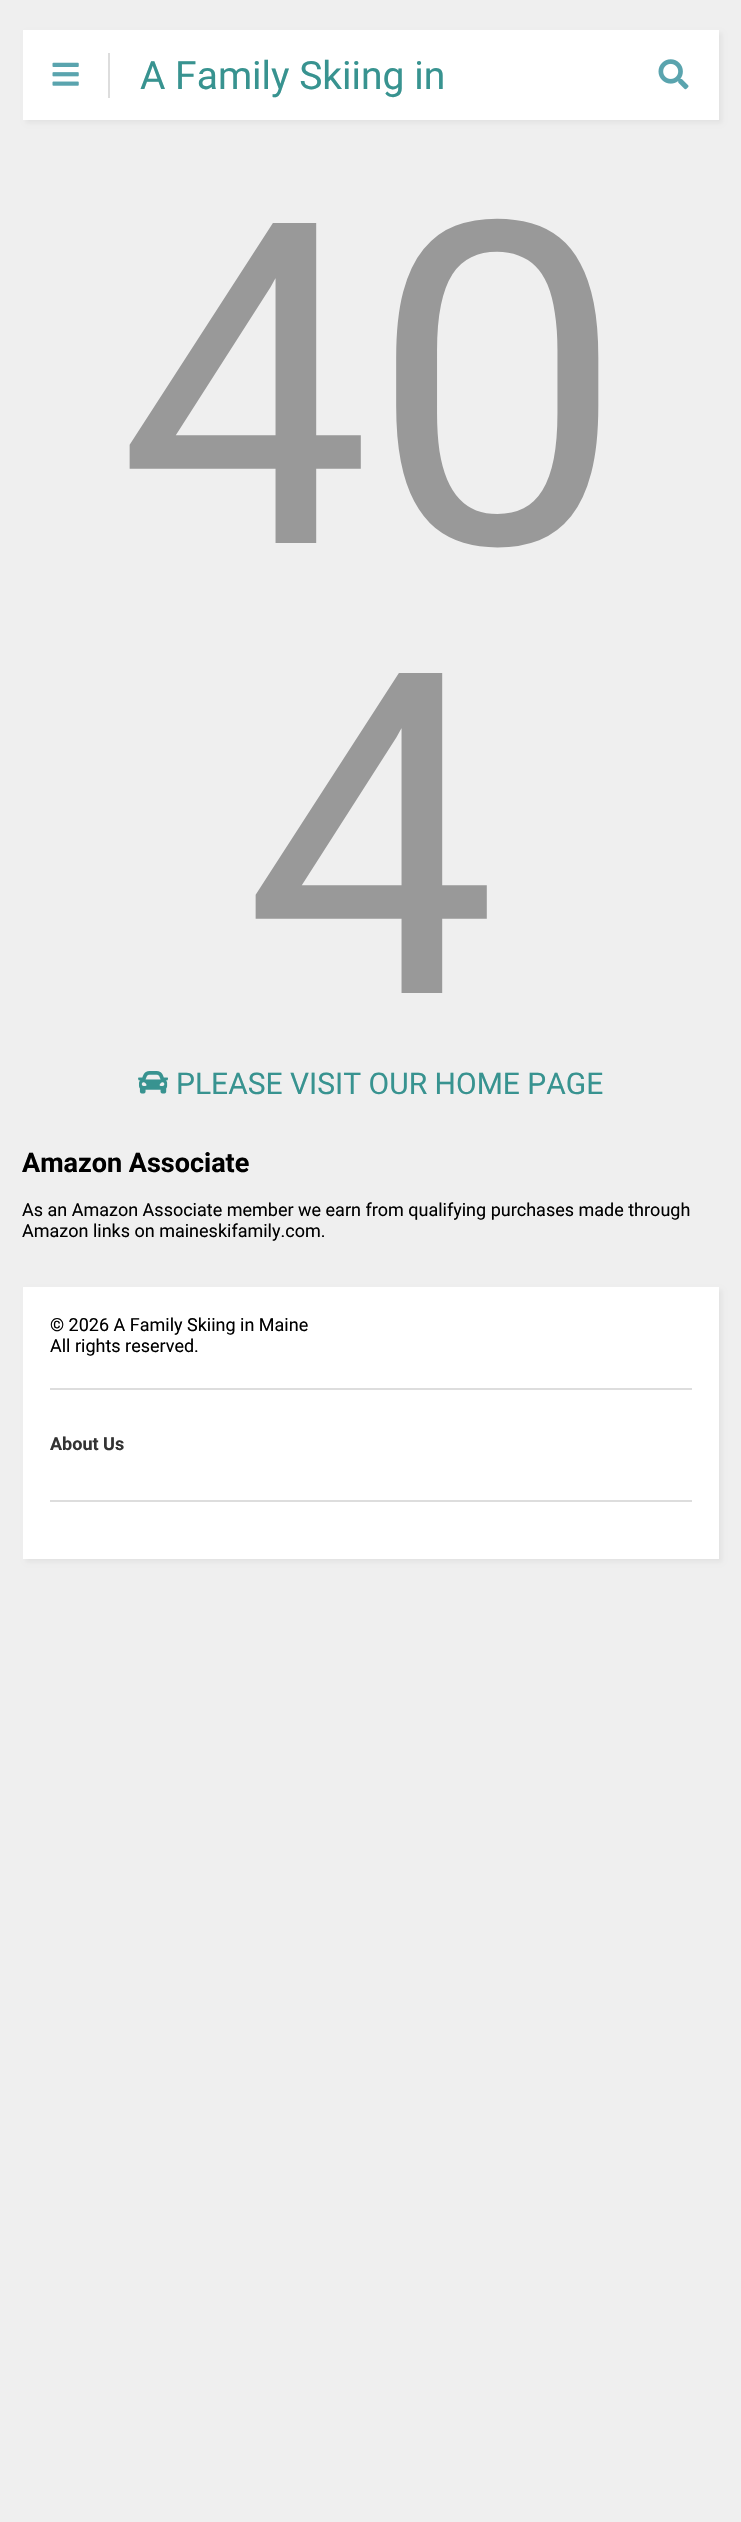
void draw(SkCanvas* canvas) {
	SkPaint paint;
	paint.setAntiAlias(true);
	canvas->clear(0xffefefef);
	paint.setColor(0x0d000000);
	paint.setMaskFilter(SkMaskFilter::MakeBlur(kNormal_SkBlurStyle, 2));
	canvas->drawRect(SkRect::MakeXYWH(26, 33, 696, 90), paint);
	paint.setMaskFilter(nullptr);
	paint.setColor(0xffffffff);
	canvas->drawRect(SkRect::MakeXYWH(23, 30, 696, 90), paint);
	canvas->drawImageRect(SkImages::DeferredFromEncodedData(SkData::MakeFromFileName("img1.png")), SkRect::MakeXYWH(52, 62, 27, 24), SkSamplingOptions());
	paint.setColor(0xffdddddd);
	canvas->drawRect(SkRect::MakeXYWH(108, 53, 2, 45), paint);
	SkFont f1(fontMgr->matchFamilyStyle("Roboto", SkFontStyle::Normal()), 39);
	f1.setSubpixel(true);
	paint.setColor(0xff389390);
	canvas->drawString("A Family Skiing in", 140, 89, f1, paint);
	canvas->drawImageRect(SkImages::DeferredFromEncodedData(SkData::MakeFromFileName("img2.png")), SkRect::MakeXYWH(658, 59, 31, 31), SkSamplingOptions());
	SkFont f2(fontMgr->matchFamilyStyle("Roboto", SkFontStyle::Normal()), 450);
	f2.setSubpixel(true);
	paint.setColor(0xff999999);
	canvas->drawString("40", 118, 543, f2, paint);
	canvas->drawString("4", 244, 993, f2, paint);
	canvas->drawImageRect(SkImages::DeferredFromEncodedData(SkData::MakeFromFileName("img3.png")), SkRect::MakeXYWH(138, 1071, 30, 23), SkSamplingOptions());
	SkFont f3(fontMgr->matchFamilyStyle("Roboto", SkFontStyle::Normal()), 30);
	f3.setSubpixel(true);
	paint.setColor(0xff389390);
	canvas->drawString("PLEASE VISIT OUR HOME PAGE", 176, 1094, f3, paint);
	SkFont f4(fontMgr->matchFamilyStyle("Roboto", SkFontStyle::Bold()), 27);
	f4.setSubpixel(true);
	paint.setColor(0xff000000);
	canvas->drawString("Amazon Associate", 22, 1172, f4, paint);
	SkFont f5(fontMgr->matchFamilyStyle("Roboto", SkFontStyle::Normal()), 18);
	f5.setSubpixel(true);
	canvas->drawString("As an Amazon Associate member we earn from qualifying purchases made through", 22, 1216, f5, paint);
	canvas->drawString("Amazon links on maineskifamily.com.", 22, 1237, f5, paint);
	paint.setColor(0x0d000000);
	paint.setMaskFilter(SkMaskFilter::MakeBlur(kNormal_SkBlurStyle, 2));
	canvas->drawRect(SkRect::MakeXYWH(26, 1290, 696, 272), paint);
	paint.setMaskFilter(nullptr);
	paint.setColor(0xffffffff);
	canvas->drawRect(SkRect::MakeXYWH(23, 1287, 696, 272), paint);
	paint.setColor(0xff000000);
	canvas->drawString("© 2026 A Family Skiing in Maine", 50, 1331, f5, paint);
	canvas->drawString("All rights reserved.", 50, 1352, f5, paint);
	paint.setColor(0xffdddddd);
	canvas->drawRect(SkRect::MakeXYWH(50, 1388, 642, 2), paint);
	SkFont f6(fontMgr->matchFamilyStyle("Roboto", SkFontStyle::Bold()), 18);
	f6.setSubpixel(true);
	paint.setColor(0xff333333);
	canvas->drawString("About Us", 50, 1450, f6, paint);
	paint.setColor(0xffdddddd);
	canvas->drawRect(SkRect::MakeXYWH(50, 1500, 642, 2), paint);
}
